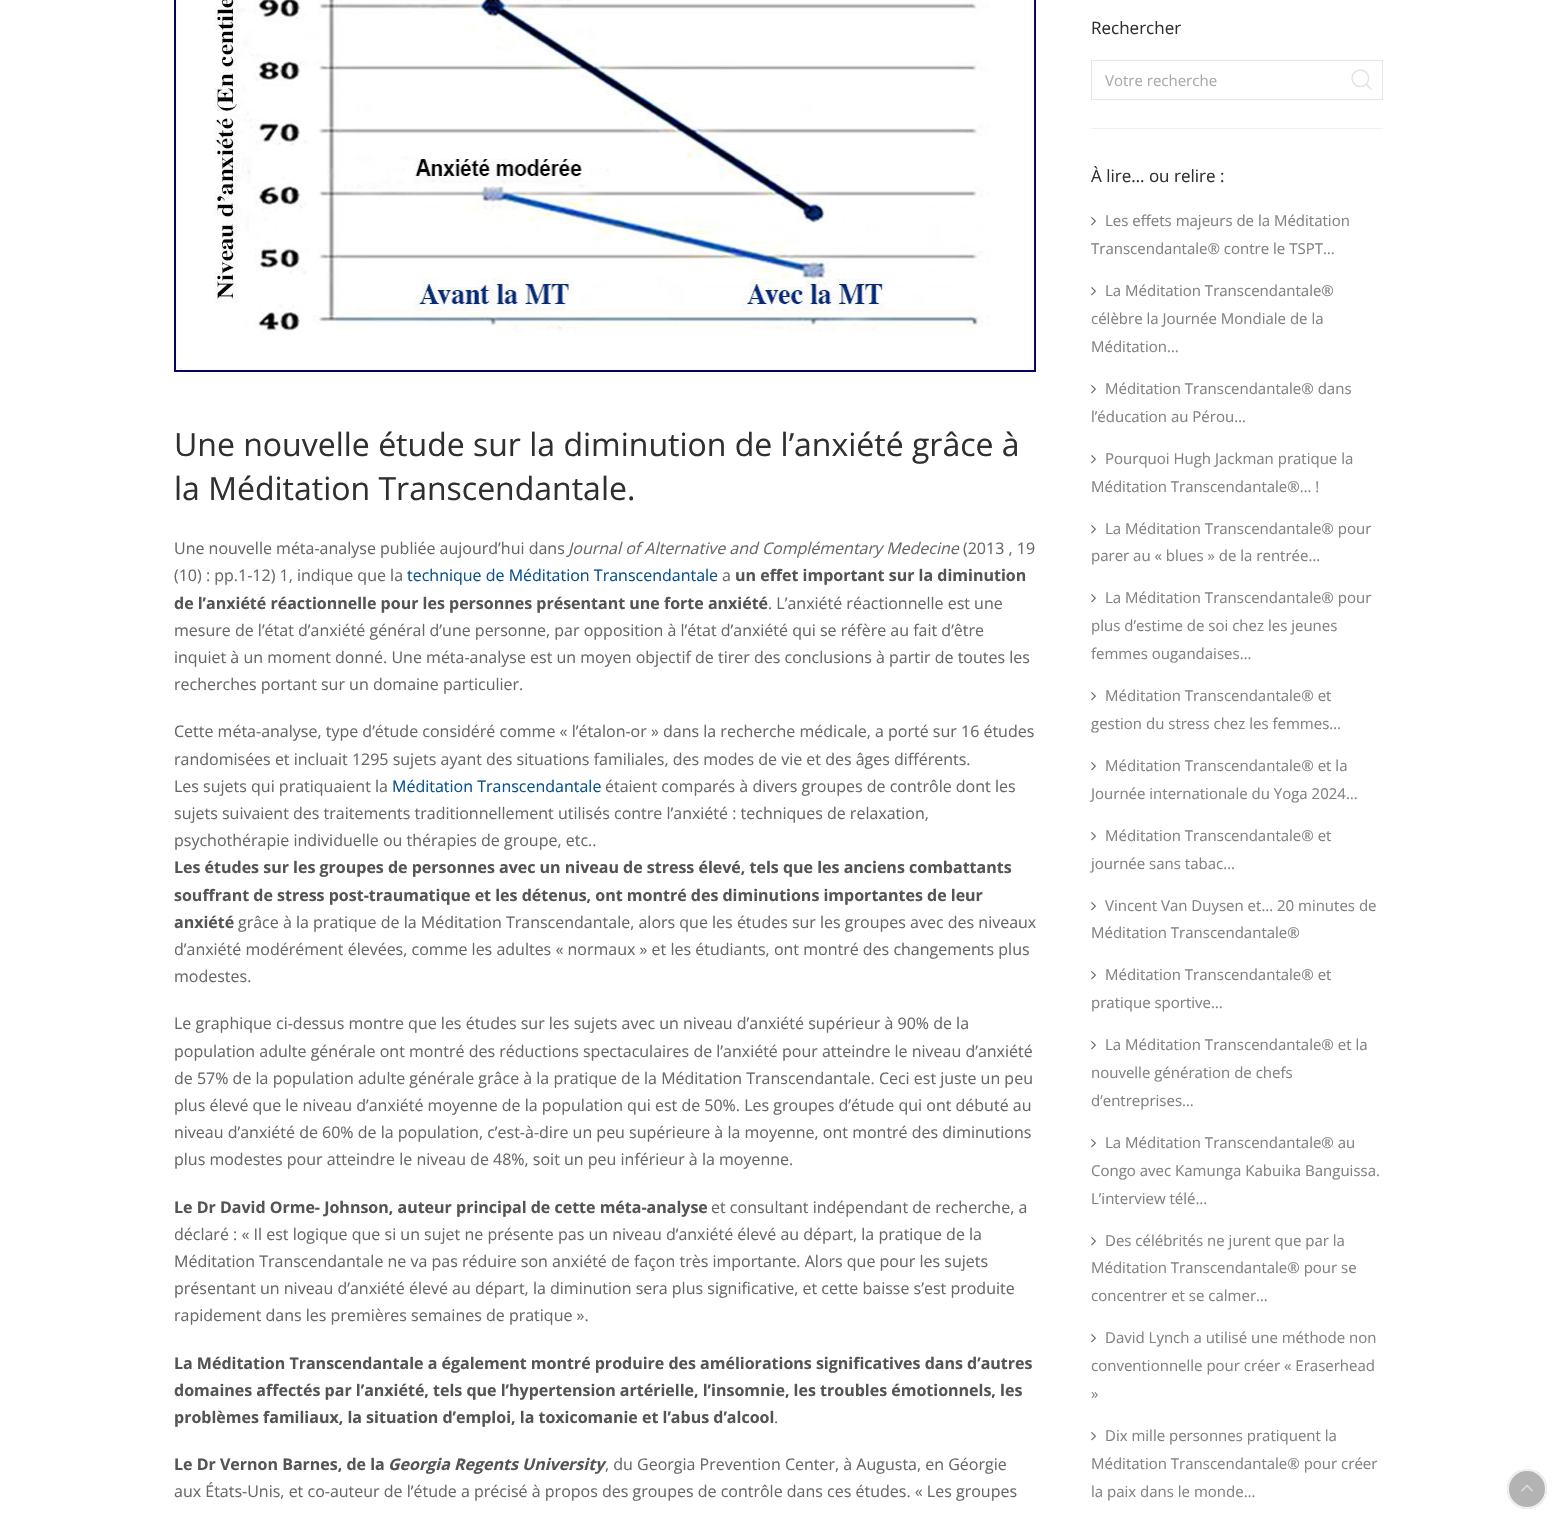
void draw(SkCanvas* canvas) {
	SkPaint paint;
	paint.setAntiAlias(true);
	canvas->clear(0xffffffff);
	canvas->drawImageRect(SkImages::DeferredFromEncodedData(SkData::MakeFromFileName("img1.png")), SkRect::MakeXYWH(174, 0, 862, 372), SkSamplingOptions());
	SkFont f1(fontMgr->matchFamilyStyle("Open Sans", SkFontStyle::Normal()), 32);
	f1.setSubpixel(true);
	paint.setColor(0xff303030);
	canvas->drawString("Une nouvelle étude sur la diminution de l’anxiété grâce à", 174, 456, f1, paint);
	canvas->drawString("la Méditation Transcendantale.", 174, 500, f1, paint);
	SkFont f2(fontMgr->matchFamilyStyle("Open Sans", SkFontStyle::Normal()), 16);
	f2.setSubpixel(true);
	paint.setColor(0xff686868);
	canvas->drawString("Une nouvelle méta-analyse publiée aujourd’hui dans", 174, 554, f2, paint);
	SkFont f3(fontMgr->matchFamilyStyle("Open Sans", SkFontStyle::Italic()), 16);
	f3.setSubpixel(true);
	canvas->drawString("Journal of Alternative and Complémentary Medecine", 568, 554, f3, paint);
	canvas->drawString("(2013 , 19", 963, 554, f2, paint);
	canvas->drawString("(10) : pp.1-12) 1, indique que la", 174, 581, f2, paint);
	paint.setColor(0xff075192);
	canvas->drawString("technique de Méditation Transcendantale", 407, 581, f2, paint);
	paint.setColor(0xff686868);
	canvas->drawString("a", 722, 581, f2, paint);
	SkFont f4(fontMgr->matchFamilyStyle("Open Sans", SkFontStyle::Bold()), 16);
	f4.setSubpixel(true);
	paint.setColor(0xff555555);
	canvas->drawString("un effet important sur la diminution", 735, 581, f4, paint);
	canvas->drawString("de l’anxiété réactionnelle pour les personnes présentant une forte anxiété", 174, 609, f4, paint);
	paint.setColor(0xff686868);
	canvas->drawString(". L’anxiété réactionnelle est une", 768, 609, f2, paint);
	canvas->drawString("mesure de l’état d’anxiété général d’une personne, par opposition à l’état d’anxiété qui se réfère au fait d’être", 174, 636, f2, paint);
	canvas->drawString("inquiet à un moment donné. Une méta-analyse est un moyen objectif de tirer des conclusions à partir de toutes les", 174, 663, f2, paint);
	canvas->drawString("recherches portant sur un domaine particulier.", 174, 690, f2, paint);
	canvas->drawString("Cette méta-analyse, type d’étude considéré comme « l’étalon-or » dans la recherche médicale, a porté sur 16 études", 174, 737, f2, paint);
	canvas->drawString("randomisées et incluait 1295 sujets ayant des situations familiales, des modes de vie et des âges différents.", 174, 765, f2, paint);
	canvas->drawString("Les sujets qui pratiquaient la", 174, 792, f2, paint);
	paint.setColor(0xff075192);
	canvas->drawString("Méditation Transcendantale", 392, 792, f2, paint);
	paint.setColor(0xff686868);
	canvas->drawString("étaient comparés à divers groupes de contrôle dont les", 605, 792, f2, paint);
	canvas->drawString("sujets suivaient des traitements traditionnellement utilisés contre l’anxiété : techniques de relaxation,", 174, 819, f2, paint);
	canvas->drawString("psychothérapie individuelle ou thérapies de groupe, etc..", 174, 846, f2, paint);
	paint.setColor(0xff555555);
	canvas->drawString("Les études sur les groupes de personnes avec un niveau de stress élevé, tels que les anciens combattants", 174, 873, f4, paint);
	canvas->drawString("souffrant de stress post-traumatique et les détenus, ont montré des diminutions importantes de leur", 174, 901, f4, paint);
	canvas->drawString("anxiété", 174, 928, f4, paint);
	paint.setColor(0xff686868);
	canvas->drawString("grâce à la pratique de la Méditation Transcendantale, alors que les études sur les groupes avec des niveaux", 238, 928, f2, paint);
	canvas->drawString("d’anxiété modérément élevées, comme les adultes « normaux » et les étudiants, ont montré des changements plus", 174, 955, f2, paint);
	canvas->drawString("modestes.", 174, 982, f2, paint);
	canvas->drawString("Le graphique ci-dessus montre que les études sur les sujets avec un niveau d’anxiété supérieur à 90% de la", 174, 1029, f2, paint);
	canvas->drawString("population adulte générale ont montré des réductions spectaculaires de l’anxiété pour atteindre le niveau d’anxiété", 174, 1057, f2, paint);
	canvas->drawString("de 57% de la population adulte générale grâce à la pratique de la Méditation Transcendantale. Ceci est juste un peu", 174, 1084, f2, paint);
	canvas->drawString("plus élevé que le niveau d’anxiété moyenne de la population qui est de 50%. Les groupes d’étude qui ont débuté au", 174, 1111, f2, paint);
	canvas->drawString("niveau d’anxiété de 60% de la population, c’est-à-dire un peu supérieure à la moyenne, ont montré des diminutions", 174, 1138, f2, paint);
	canvas->drawString("plus modestes pour atteindre le niveau de 48%, soit un peu inférieur à la moyenne.", 174, 1165, f2, paint);
	paint.setColor(0xff555555);
	canvas->drawString("Le Dr David Orme- Johnson, auteur principal de cette méta-analyse", 174, 1213, f4, paint);
	paint.setColor(0xff686868);
	canvas->drawString("et consultant indépendant de recherche, a", 711, 1213, f2, paint);
	canvas->drawString("déclaré : « Il est logique que si un sujet ne présente pas un niveau d’anxiété élevé au départ, la pratique de la", 174, 1240, f2, paint);
	canvas->drawString("Méditation Transcendantale ne va pas réduire son anxiété de façon très importante. Alors que pour les sujets", 174, 1267, f2, paint);
	canvas->drawString("présentant un niveau d’anxiété élevé au départ, la diminution sera plus significative, et cette baisse s’est produite", 174, 1294, f2, paint);
	canvas->drawString("rapidement dans les premières semaines de pratique ».", 174, 1321, f2, paint);
	paint.setColor(0xff555555);
	canvas->drawString("La Méditation Transcendantale a également montré produire des améliorations significatives dans d’autres", 174, 1369, f4, paint);
	canvas->drawString("domaines affectés par l’anxiété, tels que l’hypertension artérielle, l’insomnie, les troubles émotionnels, les", 174, 1396, f4, paint);
	canvas->drawString("problèmes familiaux, la situation d’emploi, la toxicomanie et l’abus d’alcool", 174, 1423, f4, paint);
	paint.setColor(0xff686868);
	canvas->drawString(".", 774, 1423, f2, paint);
	paint.setColor(0xff555555);
	canvas->drawString("Le Dr Vernon Barnes, de la", 174, 1470, f4, paint);
	SkFont f5(fontMgr->matchFamilyStyle("Open Sans", SkFontStyle::BoldItalic()), 16);
	f5.setSubpixel(true);
	canvas->drawString("Georgia Regents University", 388, 1470, f5, paint);
	paint.setColor(0xff686868);
	canvas->drawString(", du Georgia Prevention Center, à Augusta, en Géorgie", 605, 1470, f2, paint);
	canvas->drawString("aux États-Unis, et co-auteur de l’étude a précisé à propos des groupes de contrôle dans ces études. « Les groupes", 174, 1497, f2, paint);
	paint.setColor(0xfff0f0f0);
	canvas->drawRect(SkRect::MakeXYWH(1091, 128, 292, 1), paint);
	SkFont f6(fontMgr->matchFamilyStyle("Open Sans", SkFontStyle::Normal()), 17);
	f6.setSubpixel(true);
	paint.setColor(0xff303030);
	canvas->drawString("Rechercher", 1091, 34, f6, paint);
	paint.setStroke(true);
	paint.setStrokeWidth(1);
	paint.setColor(0xffe6e6e6);
	canvas->drawRect(SkRect::MakeXYWH(1091.5, 60.5, 291, 39), paint);
	SkFont f7(fontMgr->matchFamilyStyle("Open Sans", SkFontStyle::Normal()), 15);
	f7.setSubpixel(true);
	paint.setStroke(false);
	paint.setColor(0xffaaaaaa);
	canvas->drawString("Votre recherche", 1105, 86, f7, paint);
	canvas->drawImageRect(SkImages::DeferredFromEncodedData(SkData::MakeFromFileName("img2.png")), SkRect::MakeXYWH(1351, 69, 21, 21), SkSamplingOptions());
	paint.setColor(0xff303030);
	canvas->drawString("À lire… ou relire :", 1091, 182, f6, paint);
	canvas->drawImageRect(SkImages::DeferredFromEncodedData(SkData::MakeFromFileName("img3.png")), SkRect::MakeXYWH(1091, 217, 5, 9), SkSamplingOptions());
	paint.setColor(0xff828282);
	canvas->drawString("Les effets majeurs de la Méditation", 1105, 226, f7, paint);
	canvas->drawString("Transcendantale® contre le TSPT…", 1091, 254, f7, paint);
	canvas->drawImageRect(SkImages::DeferredFromEncodedData(SkData::MakeFromFileName("img3.png")), SkRect::MakeXYWH(1091, 287, 5, 9), SkSamplingOptions());
	canvas->drawString("La Méditation Transcendantale®", 1105, 296, f7, paint);
	canvas->drawString("célèbre la Journée Mondiale de la", 1091, 324, f7, paint);
	canvas->drawString("Méditation…", 1091, 352, f7, paint);
	canvas->drawImageRect(SkImages::DeferredFromEncodedData(SkData::MakeFromFileName("img3.png")), SkRect::MakeXYWH(1091, 385, 5, 9), SkSamplingOptions());
	canvas->drawString("Méditation Transcendantale® dans", 1105, 394, f7, paint);
	canvas->drawString("l’éducation au Pérou…", 1091, 422, f7, paint);
	canvas->drawImageRect(SkImages::DeferredFromEncodedData(SkData::MakeFromFileName("img3.png")), SkRect::MakeXYWH(1091, 455, 5, 9), SkSamplingOptions());
	canvas->drawString("Pourquoi Hugh Jackman pratique la", 1105, 464, f7, paint);
	canvas->drawString("Méditation Transcendantale®… !", 1091, 492, f7, paint);
	canvas->drawImageRect(SkImages::DeferredFromEncodedData(SkData::MakeFromFileName("img3.png")), SkRect::MakeXYWH(1091, 525, 5, 9), SkSamplingOptions());
	canvas->drawString("La Méditation Transcendantale® pour", 1105, 534, f7, paint);
	canvas->drawString("parer au « blues » de la rentrée…", 1091, 561, f7, paint);
	canvas->drawImageRect(SkImages::DeferredFromEncodedData(SkData::MakeFromFileName("img3.png")), SkRect::MakeXYWH(1091, 594, 5, 9), SkSamplingOptions());
	canvas->drawString("La Méditation Transcendantale® pour", 1105, 603, f7, paint);
	canvas->drawString("plus d’estime de soi chez les jeunes", 1091, 631, f7, paint);
	canvas->drawString("femmes ougandaises…", 1091, 659, f7, paint);
	canvas->drawImageRect(SkImages::DeferredFromEncodedData(SkData::MakeFromFileName("img3.png")), SkRect::MakeXYWH(1091, 692, 5, 9), SkSamplingOptions());
	canvas->drawString("Méditation Transcendantale® et", 1105, 701, f7, paint);
	canvas->drawString("gestion du stress chez les femmes…", 1091, 729, f7, paint);
	canvas->drawImageRect(SkImages::DeferredFromEncodedData(SkData::MakeFromFileName("img3.png")), SkRect::MakeXYWH(1091, 762, 5, 9), SkSamplingOptions());
	canvas->drawString("Méditation Transcendantale® et la", 1105, 771, f7, paint);
	canvas->drawString("Journée internationale du Yoga 2024…", 1091, 799, f7, paint);
	canvas->drawImageRect(SkImages::DeferredFromEncodedData(SkData::MakeFromFileName("img3.png")), SkRect::MakeXYWH(1091, 832, 5, 9), SkSamplingOptions());
	canvas->drawString("Méditation Transcendantale® et", 1105, 841, f7, paint);
	canvas->drawString("journée sans tabac…", 1091, 869, f7, paint);
	canvas->drawImageRect(SkImages::DeferredFromEncodedData(SkData::MakeFromFileName("img3.png")), SkRect::MakeXYWH(1091, 902, 5, 9), SkSamplingOptions());
	canvas->drawString("Vincent Van Duysen et… 20 minutes de", 1105, 911, f7, paint);
	canvas->drawString("Méditation Transcendantale®", 1091, 938, f7, paint);
	canvas->drawImageRect(SkImages::DeferredFromEncodedData(SkData::MakeFromFileName("img3.png")), SkRect::MakeXYWH(1091, 971, 5, 9), SkSamplingOptions());
	canvas->drawString("Méditation Transcendantale® et", 1105, 980, f7, paint);
	canvas->drawString("pratique sportive…", 1091, 1008, f7, paint);
	canvas->drawImageRect(SkImages::DeferredFromEncodedData(SkData::MakeFromFileName("img3.png")), SkRect::MakeXYWH(1091, 1041, 5, 9), SkSamplingOptions());
	canvas->drawString("La Méditation Transcendantale® et la", 1105, 1050, f7, paint);
	canvas->drawString("nouvelle génération de chefs", 1091, 1078, f7, paint);
	canvas->drawString("d’entreprises…", 1091, 1106, f7, paint);
	canvas->drawImageRect(SkImages::DeferredFromEncodedData(SkData::MakeFromFileName("img3.png")), SkRect::MakeXYWH(1091, 1139, 5, 9), SkSamplingOptions());
	canvas->drawString("La Méditation Transcendantale® au", 1105, 1148, f7, paint);
	canvas->drawString("Congo avec Kamunga Kabuika Banguissa.", 1091, 1176, f7, paint);
	canvas->drawString("L’interview télé…", 1091, 1204, f7, paint);
	canvas->drawImageRect(SkImages::DeferredFromEncodedData(SkData::MakeFromFileName("img3.png")), SkRect::MakeXYWH(1091, 1237, 5, 9), SkSamplingOptions());
	canvas->drawString("Des célébrités ne jurent que par la", 1105, 1246, f7, paint);
	canvas->drawString("Méditation Transcendantale® pour se", 1091, 1273, f7, paint);
	canvas->drawString("concentrer et se calmer…", 1091, 1301, f7, paint);
	canvas->drawImageRect(SkImages::DeferredFromEncodedData(SkData::MakeFromFileName("img3.png")), SkRect::MakeXYWH(1091, 1334, 5, 9), SkSamplingOptions());
	canvas->drawString("David Lynch a utilisé une méthode non", 1105, 1343, f7, paint);
	canvas->drawString("conventionnelle pour créer « Eraserhead", 1091, 1371, f7, paint);
	canvas->drawString("»", 1091, 1399, f7, paint);
	canvas->drawImageRect(SkImages::DeferredFromEncodedData(SkData::MakeFromFileName("img3.png")), SkRect::MakeXYWH(1091, 1432, 5, 9), SkSamplingOptions());
	canvas->drawString("Dix mille personnes pratiquent la", 1105, 1441, f7, paint);
	canvas->drawString("Méditation Transcendantale® pour créer", 1091, 1469, f7, paint);
	canvas->drawString("la paix dans le monde…", 1091, 1497, f7, paint);
	paint.setColor(0xffb3b3b3);
	canvas->drawCircle(1527, 1489, 20, paint);
	paint.setStroke(true);
	paint.setStrokeWidth(2);
	paint.setColor(0xccffffff);
	canvas->drawCircle(1527, 1489, 19, paint);
	canvas->drawImageRect(SkImages::DeferredFromEncodedData(SkData::MakeFromFileName("img4.png")), SkRect::MakeXYWH(1521, 1484, 12, 8), SkSamplingOptions());
}
